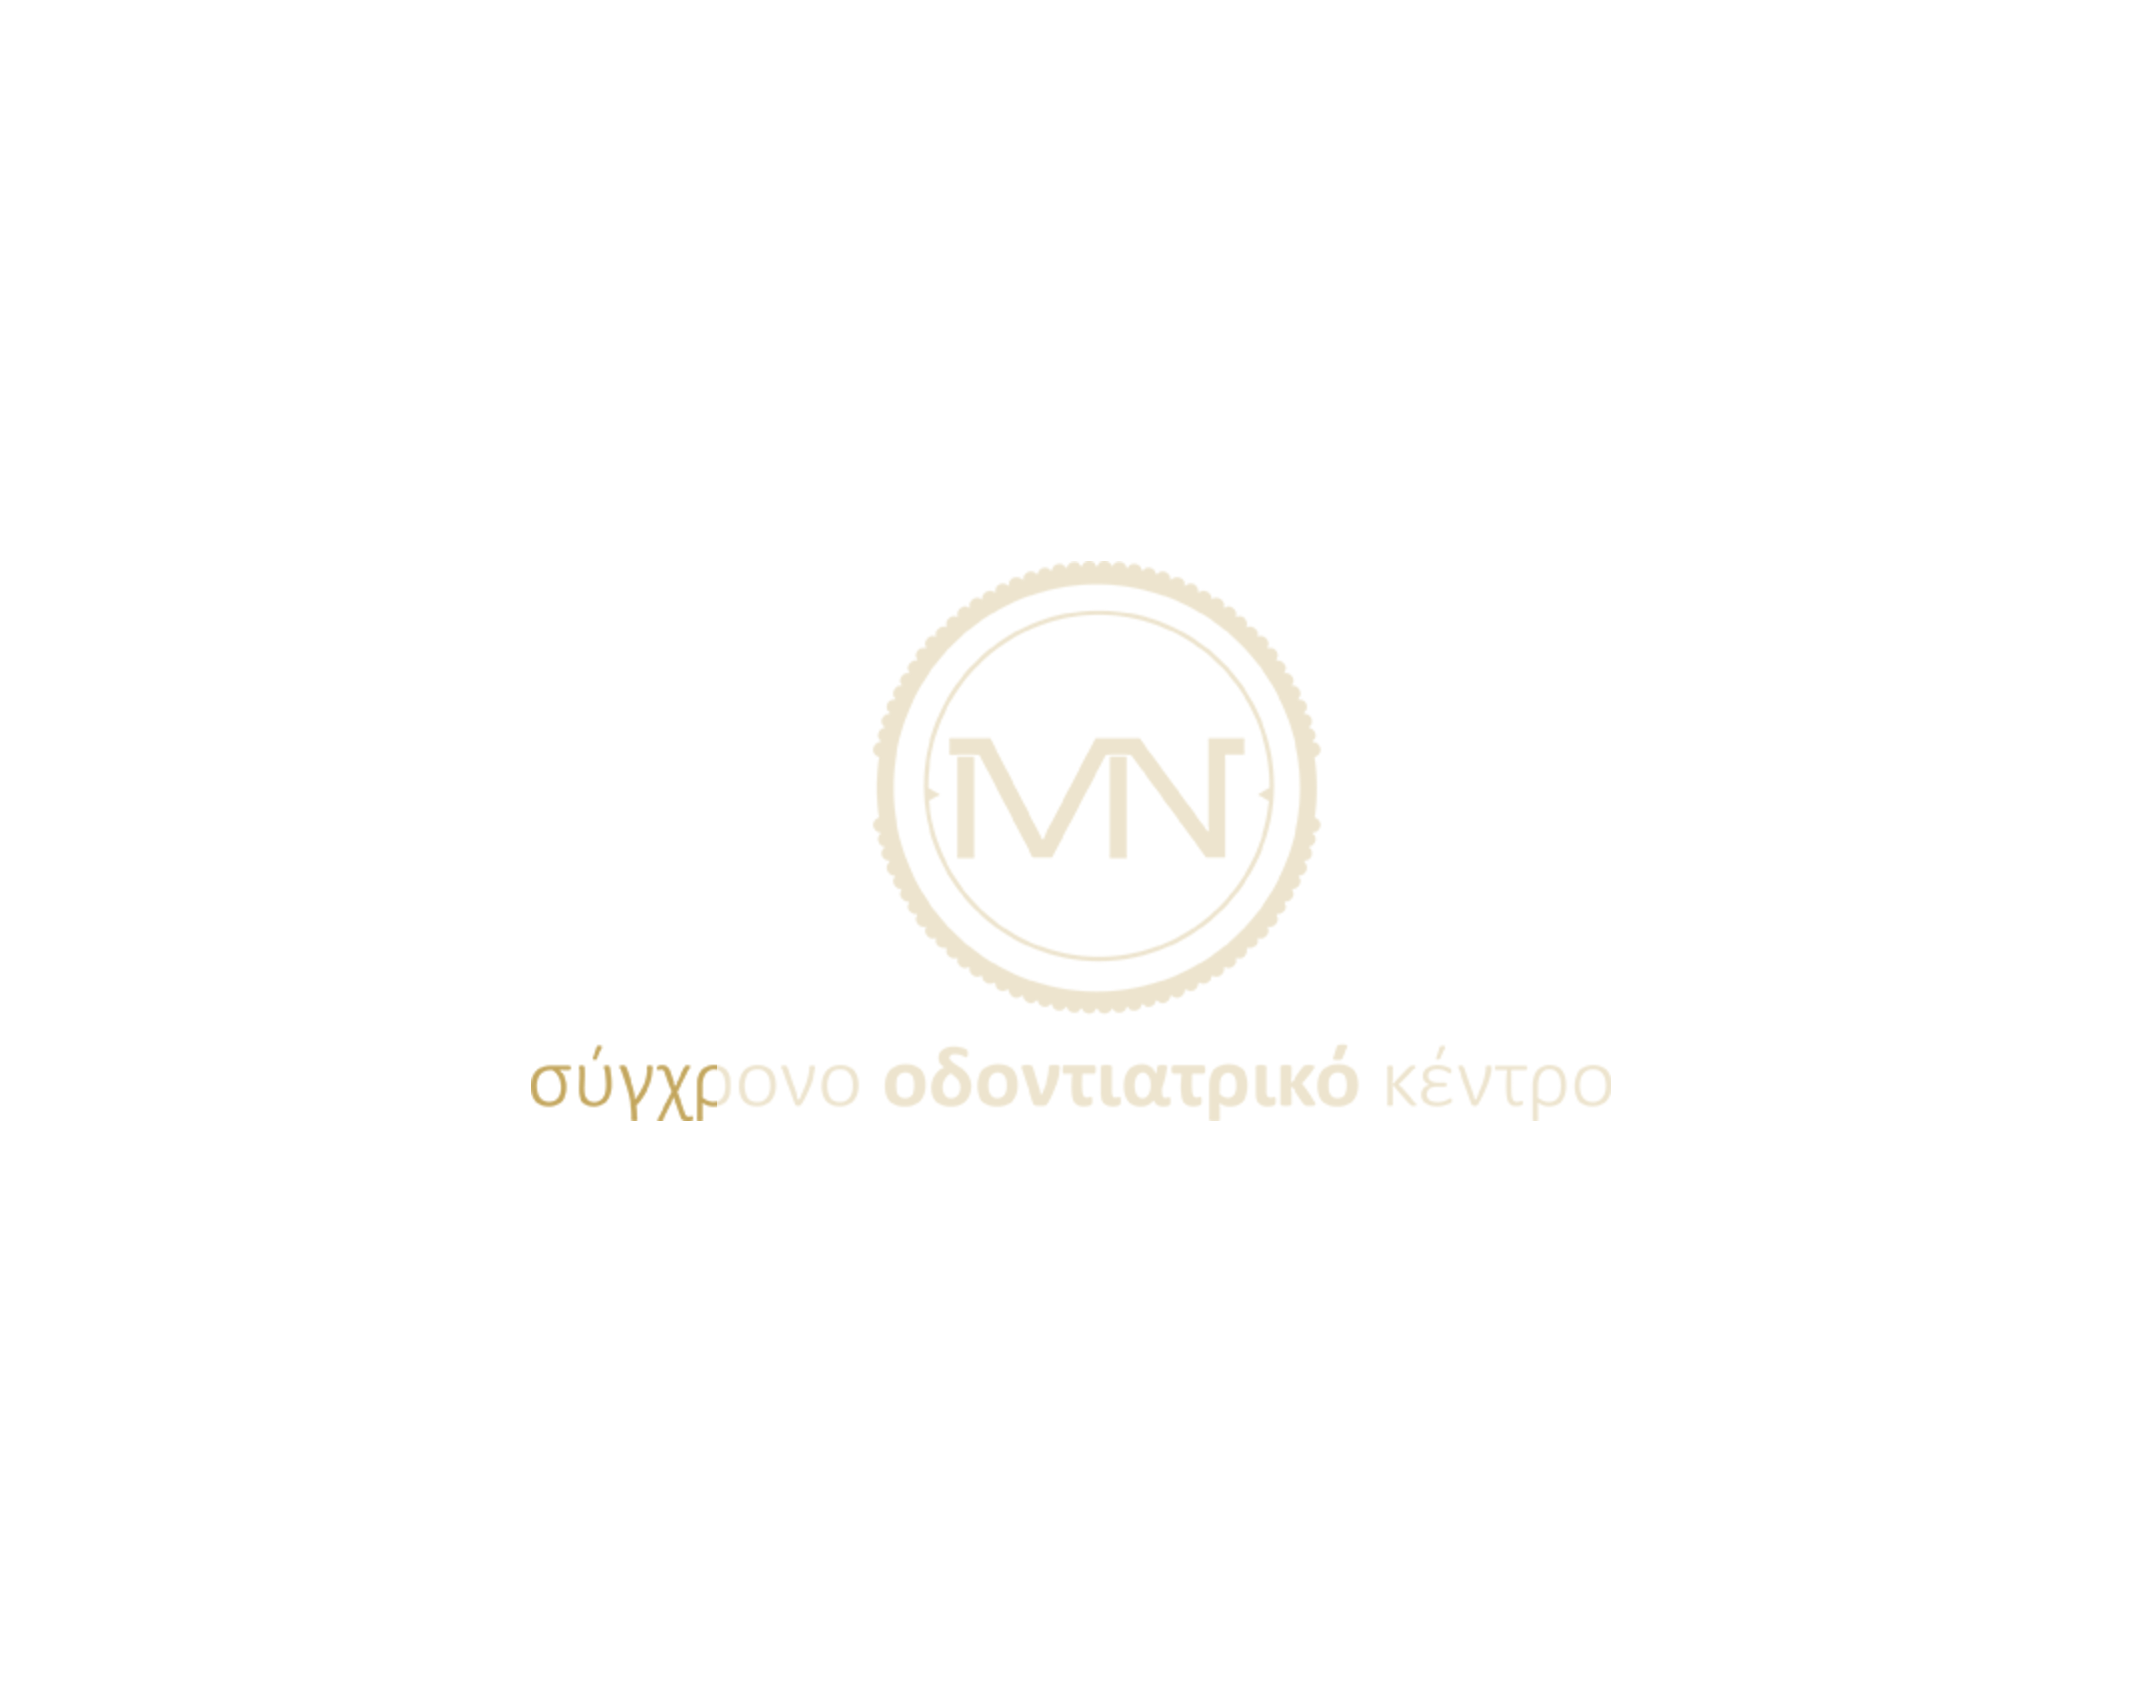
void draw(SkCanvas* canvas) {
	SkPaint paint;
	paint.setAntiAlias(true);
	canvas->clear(0xffffffff);
	canvas->drawImageRect(SkImages::DeferredFromEncodedData(SkData::MakeFromFileName("img1.png")), SkRect::MakeXYWH(531, 561, 1080, 560), SkSamplingOptions());
	canvas->drawImageRect(SkImages::DeferredFromEncodedData(SkData::MakeFromFileName("img2.png")), SkRect::MakeXYWH(531, 1044, 186, 77), SkSamplingOptions());
}
